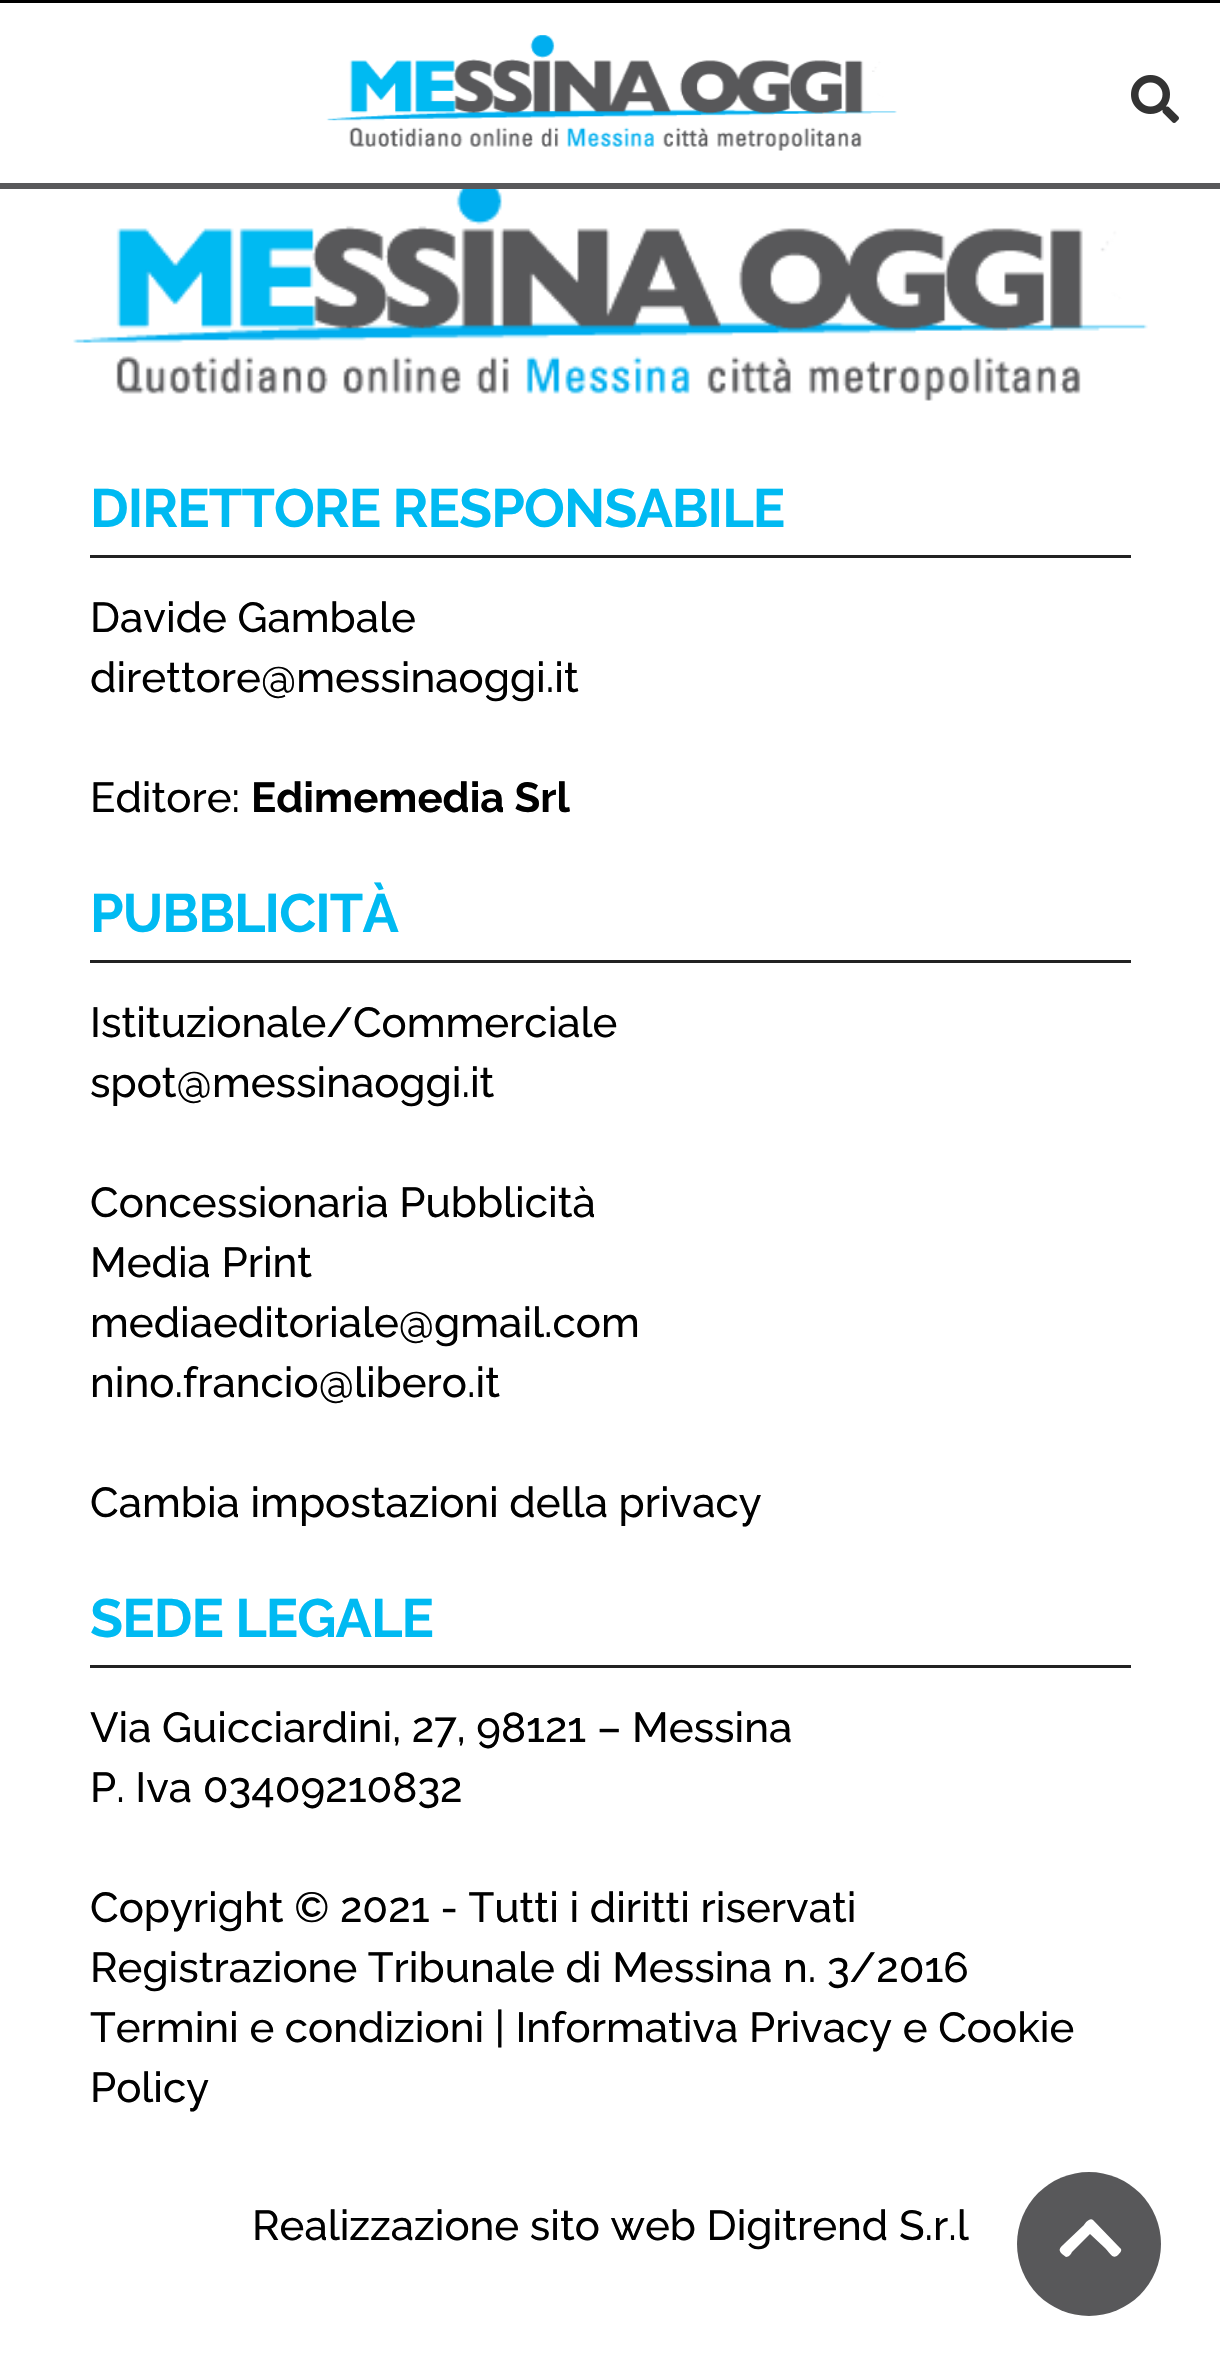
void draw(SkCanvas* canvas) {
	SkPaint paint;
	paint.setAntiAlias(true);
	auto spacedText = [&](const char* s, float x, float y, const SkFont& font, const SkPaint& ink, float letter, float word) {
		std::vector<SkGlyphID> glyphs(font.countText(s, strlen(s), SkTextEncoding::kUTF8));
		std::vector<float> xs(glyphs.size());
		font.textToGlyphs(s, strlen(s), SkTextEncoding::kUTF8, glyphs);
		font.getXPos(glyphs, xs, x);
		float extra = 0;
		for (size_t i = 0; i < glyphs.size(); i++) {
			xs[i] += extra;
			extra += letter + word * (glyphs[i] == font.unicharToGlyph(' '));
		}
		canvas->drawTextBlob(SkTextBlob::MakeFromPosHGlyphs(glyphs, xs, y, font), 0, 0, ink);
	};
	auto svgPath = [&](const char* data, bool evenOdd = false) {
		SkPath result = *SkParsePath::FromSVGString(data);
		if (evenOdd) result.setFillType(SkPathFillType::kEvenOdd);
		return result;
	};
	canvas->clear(0xffffffff);
	paint.setColor(0xff000000);
	canvas->drawRect(SkRect::MakeXYWH(0, 0, 1220, 3), paint);
	paint.setColor(0xff58585a);
	canvas->drawRect(SkRect::MakeXYWH(0, 183, 1220, 6), paint);
	canvas->drawImageRect(SkImages::DeferredFromEncodedData(SkData::MakeFromFileName("img1.png")), SkRect::MakeXYWH(326, 35, 571, 116), SkSamplingOptions());
	canvas->drawImageRect(SkImages::DeferredFromEncodedData(SkData::MakeFromFileName("img2.png")), SkRect::MakeXYWH(1131, 75, 48, 48), SkSamplingOptions());
	canvas->drawImageRect(SkImages::DeferredFromEncodedData(SkData::MakeFromFileName("img3.png")), SkRect::MakeXYWH(73, 189, 1075, 212), SkSamplingOptions());
	paint.setColor(0xff222222);
	canvas->drawRect(SkRect::MakeXYWH(90, 555, 1041, 3), paint);
	SkFont f1(fontMgr->matchFamilyStyle("Raleway", SkFontStyle::Bold()), 54);
	f1.setSubpixel(true);
	paint.setColor(0xff00baf2);
	spacedText("DIRETTORE RESPONSABILE", 90, 527, f1, paint, -0.9, 0);
	SkFont f2(fontMgr->matchFamilyStyle("Raleway", SkFontStyle(500, SkFontStyle::kNormal_Width, SkFontStyle::kUpright_Slant)), 42);
	f2.setSubpixel(true);
	paint.setColor(0xff000000);
	canvas->drawString("Davide Gambale", 90, 632, f2, paint);
	canvas->drawString("direttore@messinaoggi.it", 90, 692, f2, paint);
	canvas->drawString("Editore:", 90, 812, f2, paint);
	SkFont f3(fontMgr->matchFamilyStyle("Raleway", SkFontStyle::Bold()), 42);
	f3.setSubpixel(true);
	canvas->drawString("Edimemedia Srl", 251, 812, f3, paint);
	paint.setColor(0xff222222);
	canvas->drawRect(SkRect::MakeXYWH(90, 960, 1041, 3), paint);
	paint.setColor(0xff00baf2);
	spacedText("PUBBLICITÀ", 90, 932, f1, paint, -0.9, 0);
	paint.setColor(0xff000000);
	canvas->drawString("Istituzionale/Commerciale", 90, 1037, f2, paint);
	canvas->drawString("spot@messinaoggi.it", 90, 1097, f2, paint);
	canvas->drawString("Concessionaria Pubblicità", 90, 1217, f2, paint);
	canvas->drawString("Media Print", 90, 1277, f2, paint);
	canvas->drawString("mediaeditoriale@gmail.com", 90, 1337, f2, paint);
	canvas->drawString("nino.francio@libero.it", 90, 1397, f2, paint);
	canvas->drawString("Cambia impostazioni della privacy", 90, 1517, f2, paint);
	paint.setColor(0xff222222);
	canvas->drawRect(SkRect::MakeXYWH(90, 1665, 1041, 3), paint);
	paint.setColor(0xff00baf2);
	spacedText("SEDE LEGALE", 90, 1637, f1, paint, -0.9, 0);
	paint.setColor(0xff000000);
	canvas->drawString("Via Guicciardini, 27, 98121 – Messina", 90, 1742, f2, paint);
	canvas->drawString("P. Iva 03409210832", 90, 1802, f2, paint);
	canvas->drawString("Copyright © 2021 - Tutti i diritti riservati", 90, 1922, f2, paint);
	canvas->drawString("Registrazione Tribunale di Messina n. 3/2016", 90, 1982, f2, paint);
	canvas->drawString("Termini e condizioni | Informativa Privacy e Cookie", 90, 2042, f2, paint);
	canvas->drawString("Policy", 90, 2102, f2, paint);
	canvas->drawString("Realizzazione sito web Digitrend S.r.l", 252, 2240, f2, paint);
	paint.setColor(0xff58585a);
	canvas->drawCircle(1089, 2244, 72, paint);
	paint.setColor(0xffffffff);
	canvas->drawPath(svgPath("M1093 2220L1120 2248C1123 2250 1120 2253 1118 2255C1113 2260 1110 2253 1105 2248L1090 2234L1072 2252C1071 2254 1069 2257 1066 2257L1062 2254C1057 2249 1061 2247 1065 2243L1084 2225C1085 2223 1090 2217 1093 2220Z"), paint);
}
